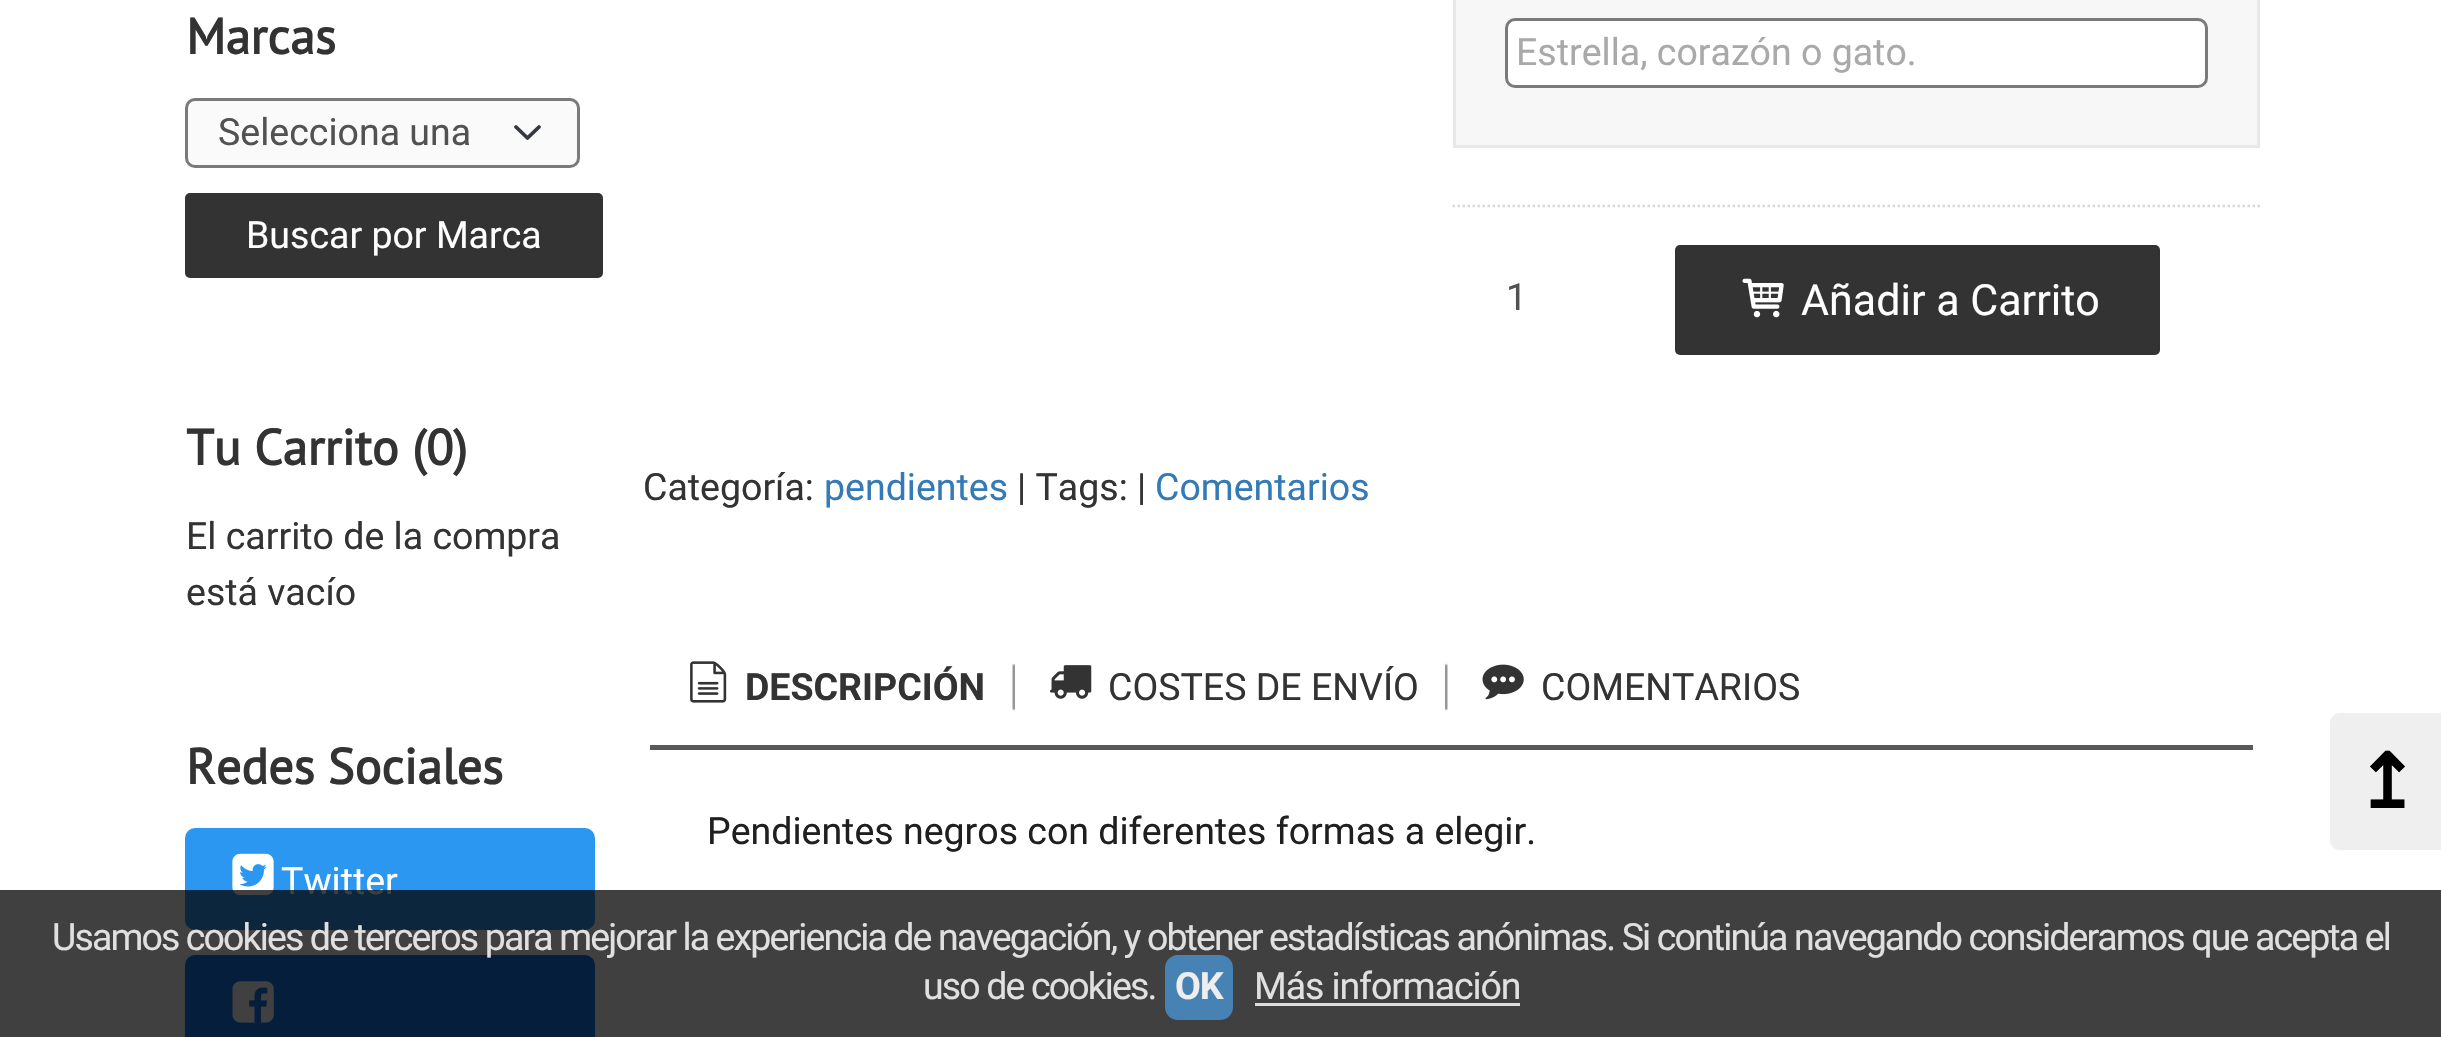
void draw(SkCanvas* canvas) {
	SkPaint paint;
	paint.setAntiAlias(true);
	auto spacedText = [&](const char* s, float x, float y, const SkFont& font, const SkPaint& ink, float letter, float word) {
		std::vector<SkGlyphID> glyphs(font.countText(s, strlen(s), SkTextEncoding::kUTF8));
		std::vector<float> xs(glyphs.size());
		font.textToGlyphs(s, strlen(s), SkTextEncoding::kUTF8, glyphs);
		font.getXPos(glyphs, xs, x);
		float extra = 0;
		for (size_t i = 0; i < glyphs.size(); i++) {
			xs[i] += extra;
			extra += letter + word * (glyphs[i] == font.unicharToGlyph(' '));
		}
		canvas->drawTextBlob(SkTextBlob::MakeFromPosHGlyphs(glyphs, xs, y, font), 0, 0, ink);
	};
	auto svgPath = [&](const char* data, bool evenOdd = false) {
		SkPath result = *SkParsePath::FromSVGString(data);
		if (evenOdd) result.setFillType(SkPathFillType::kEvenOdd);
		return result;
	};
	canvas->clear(0xffffffff);
	SkFont f1(fontMgr->matchFamilyStyle("PT Sans", SkFontStyle::Bold()), 50);
	f1.setSubpixel(true);
	paint.setColor(0xff333333);
	canvas->drawString("Marcas", 186, 54, f1, paint);
	paint.setColor(0xfffafafa);
	canvas->drawRoundRect(SkRect::MakeXYWH(185, 98, 395, 70), 10, 10, paint);
	paint.setStroke(true);
	paint.setStrokeWidth(3.8);
	paint.setStrokeCap(SkPaint::kRound_Cap);
	paint.setStrokeJoin(SkPaint::kRound_Join);
	paint.setColor(0xff343a40);
	canvas->drawPath(svgPath("M516 127L527.5 138L539 127"), paint);
	paint.setStrokeWidth(3);
	paint.setStrokeCap(SkPaint::kButt_Cap);
	paint.setStrokeJoin(SkPaint::kMiter_Join);
	paint.setColor(0xff7a7a7a);
	canvas->drawRoundRect(SkRect::MakeXYWH(186.5, 99.5, 392, 67), 8.5, 8.5, paint);
	SkFont f2(fontMgr->matchFamilyStyle("Roboto", SkFontStyle::Normal()), 37.5);
	f2.setSubpixel(true);
	paint.setStroke(false);
	paint.setColor(0xff525252);
	canvas->drawString("Selecciona una", 218, 145, f2, paint);
	paint.setColor(0xff333333);
	canvas->drawRoundRect(SkRect::MakeXYWH(185, 193, 418, 85), 5, 5, paint);
	paint.setColor(0xffffffff);
	canvas->drawString("Buscar por Marca", 246, 248, f2, paint);
	paint.setColor(0xff333333);
	canvas->drawString("Tu Carrito (0)", 186, 465, f1, paint);
	canvas->drawString("El carrito de la compra", 186, 549, f2, paint);
	canvas->drawString("está vacío", 186, 605, f2, paint);
	canvas->drawString("Redes Sociales", 186, 784, f1, paint);
	paint.setColor(0xff2b97f1);
	canvas->drawRoundRect(SkRect::MakeXYWH(185, 828, 410, 102), 10, 10, paint);
	canvas->drawImageRect(SkImages::DeferredFromEncodedData(SkData::MakeFromFileName("img1.png")), SkRect::MakeXYWH(232, 853, 42, 43), SkSamplingOptions());
	paint.setColor(0xffffffff);
	canvas->drawString("Twitter", 281, 894, f2, paint);
	paint.setColor(0xff1478eb);
	canvas->drawRoundRect(SkRect::MakeXYWH(185, 955, 410, 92), 10, 10, paint);
	canvas->drawImageRect(SkImages::DeferredFromEncodedData(SkData::MakeFromFileName("img2.png")), SkRect::MakeXYWH(232, 981, 42, 42), SkSamplingOptions());
	paint.setColor(0xfff7f7f7);
	canvas->drawRect(SkRect::MakeXYWH(1454.5, -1.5, 804, 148), paint);
	paint.setStroke(true);
	paint.setColor(0xffe8e8e8);
	canvas->drawRect(SkRect::MakeXYWH(1454.5, -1.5, 804, 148), paint);
	paint.setStroke(false);
	paint.setColor(0xffffffff);
	canvas->drawRoundRect(SkRect::MakeXYWH(1506.5, 19.5, 700, 67), 8.5, 8.5, paint);
	paint.setStroke(true);
	paint.setColor(0xff7a7a7a);
	canvas->drawRoundRect(SkRect::MakeXYWH(1506.5, 19.5, 700, 67), 8.5, 8.5, paint);
	paint.setStroke(false);
	paint.setColor(0xffa9a9a9);
	canvas->drawString("Estrella, corazón o gato.", 1516, 65, f2, paint);
	paint.setStroke(true);
	paint.setStrokeWidth(2.5);
	paint.setColor(0xffd9d9d9);
	paint.setPathEffect(SkDashPathEffect::Make({{2.5f, 2.5f}}, 0));
	canvas->drawPath(svgPath("M1452.5 206H2260"), paint);
	paint.setPathEffect(nullptr);
	paint.setStroke(false);
	paint.setColor(0xff525252);
	canvas->drawString("1", 1506, 310, f2, paint);
	paint.setColor(0xff333333);
	canvas->drawRoundRect(SkRect::MakeXYWH(1675, 245, 485, 110), 5, 5, paint);
	canvas->drawImageRect(SkImages::DeferredFromEncodedData(SkData::MakeFromFileName("img3.png")), SkRect::MakeXYWH(1742, 278, 42, 40), SkSamplingOptions());
	SkFont f3(fontMgr->matchFamilyStyle("Roboto", SkFontStyle::Normal()), 43);
	f3.setSubpixel(true);
	paint.setColor(0xffffffff);
	canvas->drawString("Añadir a Carrito", 1801, 315, f3, paint);
	paint.setColor(0xff333333);
	canvas->drawString("Categoría:", 643, 500, f2, paint);
	paint.setColor(0xff337ab7);
	canvas->drawString("pendientes", 824, 500, f2, paint);
	paint.setColor(0xff333333);
	canvas->drawString("| Tags: |", 1017, 500, f2, paint);
	paint.setColor(0xff337ab7);
	canvas->drawString("Comentarios", 1155, 500, f2, paint);
	paint.setColor(0xff595959);
	canvas->drawRect(SkRect::MakeXYWH(650, 745, 1603, 5), paint);
	canvas->drawImageRect(SkImages::DeferredFromEncodedData(SkData::MakeFromFileName("img4.png")), SkRect::MakeXYWH(690, 661, 37, 42), SkSamplingOptions());
	SkFont f4(fontMgr->matchFamilyStyle("Roboto", SkFontStyle::Bold()), 37.5);
	f4.setSubpixel(true);
	paint.setColor(0xff333333);
	canvas->drawString("DESCRIPCIÓN", 745, 700, f4, paint);
	canvas->drawImageRect(SkImages::DeferredFromEncodedData(SkData::MakeFromFileName("img5.png")), SkRect::MakeXYWH(1012, 663, 3, 48), SkSamplingOptions());
	canvas->drawImageRect(SkImages::DeferredFromEncodedData(SkData::MakeFromFileName("img6.png")), SkRect::MakeXYWH(1050, 665, 42, 34), SkSamplingOptions());
	canvas->drawString("COSTES DE ENVÍO", 1108, 700, f2, paint);
	canvas->drawImageRect(SkImages::DeferredFromEncodedData(SkData::MakeFromFileName("img7.png")), SkRect::MakeXYWH(1445, 663, 3, 48), SkSamplingOptions());
	canvas->drawImageRect(SkImages::DeferredFromEncodedData(SkData::MakeFromFileName("img8.png")), SkRect::MakeXYWH(1482, 664, 42, 36), SkSamplingOptions());
	canvas->drawString("COMENTARIOS", 1541, 700, f2, paint);
	paint.setColor(0xff1f1f1f);
	canvas->drawString("Pendientes negros con diferentes formas a elegir.", 707, 844, f2, paint);
	paint.setColor(0xffefefef);
	canvas->drawPath(svgPath("M2340 713H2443V850H2340C2334.5 850 2330 845.5 2330 840V723C2330 717.5 2334.5 713 2340 713Z"), paint);
	SkFont f5(fontMgr->matchFamilyStyle("DejaVu Sans", SkFontStyle::Bold()), 75);
	f5.setSubpixel(true);
	paint.setColor(0xff000000);
	canvas->drawString("↥", 2355, 808, f5, paint);
	paint.setColor(0xbf000000);
	canvas->drawRect(SkRect::MakeXYWH(0, 890, 2441, 147), paint);
	paint.setColor(0xffe0e0e0);
	spacedText("Usamos cookies de terceros para mejorar la experiencia de navegación, y obtener estadísticas anónimas. Si continúa navegando consideramos que acepta el", 52, 950, f2, paint, -1.88, 0);
	spacedText("uso de cookies.", 923, 999, f2, paint, -1.88, 0);
	paint.setColor(0xff4682b4);
	canvas->drawRoundRect(SkRect::MakeXYWH(1165, 955, 68, 65), 13, 13, paint);
	paint.setColor(0xffeeeeee);
	spacedText("OK", 1175, 999, f4, paint, -1.1, 0);
	paint.setColor(0xffe0e0e0);
	spacedText("Más información", 1254, 999, f2, paint, -1.1, 0);
	paint.setColor(0xffdddddd);
	canvas->drawRect(SkRect::MakeXYWH(1255, 1003, 265, 3), paint);
}
